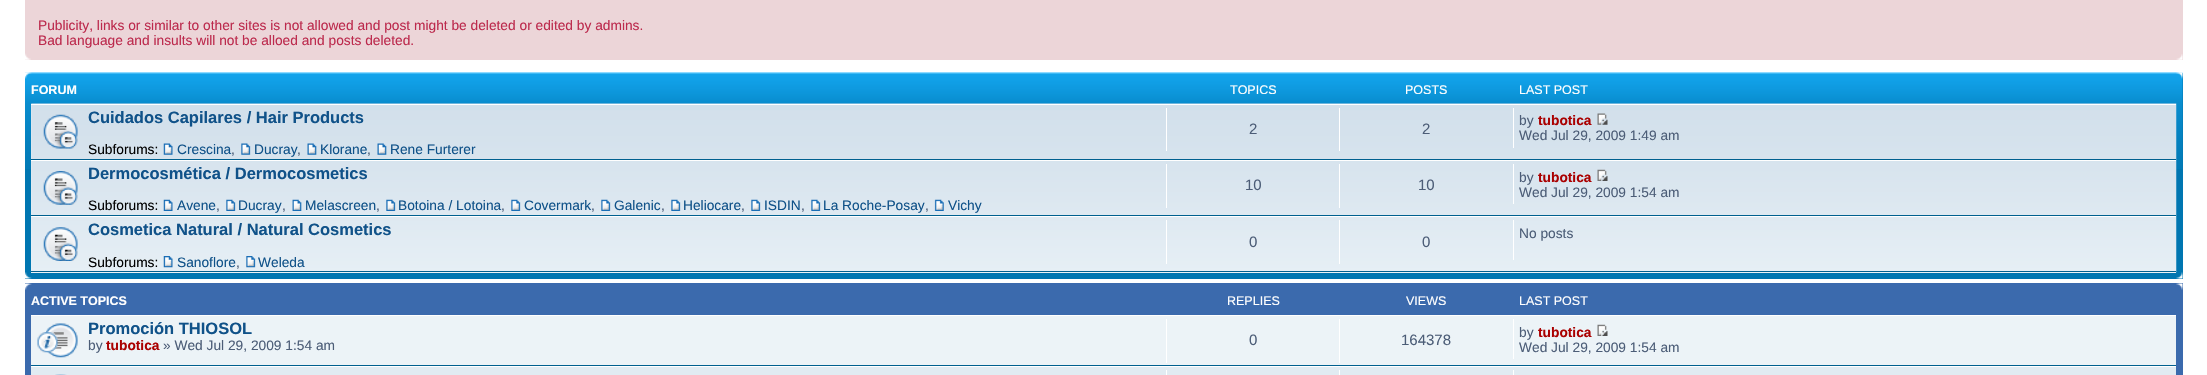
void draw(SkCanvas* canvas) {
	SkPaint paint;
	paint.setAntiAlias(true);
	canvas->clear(0xffffffff);
	paint.setColor(0xffecd5d8);
	canvas->drawRect(SkRect::MakeXYWH(25, 0, 2158, 60), paint);
	SkFont f1(fontMgr->matchFamilyStyle("Liberation Sans", SkFontStyle::Normal()), 13.75);
	f1.setSubpixel(true);
	paint.setColor(0xffbc2a4d);
	canvas->drawString("Publicity, links or similar to other sites is not allowed and post might be deleted or edited by admins.", 38, 30, f1, paint);
	canvas->drawString("Bad language and insults will not be alloed and posts deleted.", 38, 45, f1, paint);
	canvas->drawImageRect(SkImages::DeferredFromEncodedData(SkData::MakeFromFileName("img1.png")), SkRect::MakeXYWH(25, 53, 6, 7), SkSamplingOptions());
	canvas->drawImageRect(SkImages::DeferredFromEncodedData(SkData::MakeFromFileName("img2.png")), SkRect::MakeXYWH(2176, 54, 7, 6), SkSamplingOptions());
	paint.setColor(0xff0076b1);
	canvas->drawRect(SkRect::MakeXYWH(25, 73, 2158, 206), paint);
	canvas->drawImageRect(SkImages::DeferredFromEncodedData(SkData::MakeFromFileName("img3.png")), SkRect::MakeXYWH(25, 72, 2158, 97), SkSamplingOptions());
	canvas->drawImageRect(SkImages::DeferredFromEncodedData(SkData::MakeFromFileName("img4.png")), SkRect::MakeXYWH(25, 72, 7, 7), SkSamplingOptions());
	canvas->drawImageRect(SkImages::DeferredFromEncodedData(SkData::MakeFromFileName("img5.png")), SkRect::MakeXYWH(2176, 72, 7, 7), SkSamplingOptions());
	SkFont f2(fontMgr->matchFamilyStyle("Liberation Sans", SkFontStyle::Bold()), 12.5);
	f2.setSubpixel(true);
	paint.setColor(0xffffffff);
	canvas->drawString("FORUM", 31, 94, f2, paint);
	SkFont f3(fontMgr->matchFamilyStyle("Liberation Sans", SkFontStyle::Normal()), 12.5);
	f3.setSubpixel(true);
	canvas->drawString("TOPICS", 1230, 94, f3, paint);
	canvas->drawString("POSTS", 1405, 94, f3, paint);
	canvas->drawString("LAST POST", 1519, 94, f3, paint);
	paint.setColor(0xffeef5f9);
	canvas->drawRect(SkRect::MakeXYWH(31, 105, 2145, 168), paint);
	canvas->drawImageRect(SkImages::DeferredFromEncodedData(SkData::MakeFromFileName("img6.png")), SkRect::MakeXYWH(31, 103, 2146, 170), SkSamplingOptions());
	paint.setColor(0xffffffff);
	canvas->drawRect(SkRect::MakeXYWH(31, 104, 2145, 1), paint);
	paint.setColor(0xff00608f);
	canvas->drawRect(SkRect::MakeXYWH(31, 159, 2145, 1), paint);
	canvas->drawImageRect(SkImages::DeferredFromEncodedData(SkData::MakeFromFileName("img7.png")), SkRect::MakeXYWH(43, 114, 35, 35), SkSamplingOptions());
	SkFont f4(fontMgr->matchFamilyStyle("Liberation Sans", SkFontStyle::Bold()), 16.5);
	f4.setSubpixel(true);
	paint.setColor(0xff105289);
	canvas->drawString("Cuidados Capilares / Hair Products", 88, 123, f4, paint);
	paint.setColor(0xff000000);
	canvas->drawString("Subforums:", 88, 154, f1, paint);
	canvas->drawImageRect(SkImages::DeferredFromEncodedData(SkData::MakeFromFileName("img8.png")), SkRect::MakeXYWH(163, 143, 10, 12), SkSamplingOptions());
	paint.setColor(0xff105289);
	canvas->drawString("Crescina", 177, 154, f1, paint);
	paint.setColor(0xff4c5d77);
	canvas->drawString(",", 231, 154, f1, paint);
	canvas->drawImageRect(SkImages::DeferredFromEncodedData(SkData::MakeFromFileName("img9.png")), SkRect::MakeXYWH(241, 143, 10, 12), SkSamplingOptions());
	paint.setColor(0xff105289);
	canvas->drawString("Ducray", 254, 154, f1, paint);
	paint.setColor(0xff4c5d77);
	canvas->drawString(",", 297, 154, f1, paint);
	canvas->drawImageRect(SkImages::DeferredFromEncodedData(SkData::MakeFromFileName("img10.png")), SkRect::MakeXYWH(307, 143, 10, 12), SkSamplingOptions());
	paint.setColor(0xff105289);
	canvas->drawString("Klorane", 320, 154, f1, paint);
	paint.setColor(0xff4c5d77);
	canvas->drawString(",", 367, 154, f1, paint);
	canvas->drawImageRect(SkImages::DeferredFromEncodedData(SkData::MakeFromFileName("img10.png")), SkRect::MakeXYWH(377, 143, 10, 12), SkSamplingOptions());
	paint.setColor(0xff105289);
	canvas->drawString("Rene Furterer", 390, 154, f1, paint);
	paint.setColor(0xffffffff);
	canvas->drawRect(SkRect::MakeXYWH(1166, 108, 1, 43), paint);
	SkFont f5(fontMgr->matchFamilyStyle("Liberation Sans", SkFontStyle::Normal()), 15);
	f5.setSubpixel(true);
	paint.setColor(0xff4c5d77);
	canvas->drawString("2", 1249, 134, f5, paint);
	paint.setColor(0xffffffff);
	canvas->drawRect(SkRect::MakeXYWH(1339, 108, 1, 43), paint);
	paint.setColor(0xff4c5d77);
	canvas->drawString("2", 1422, 134, f5, paint);
	paint.setColor(0xffffffff);
	canvas->drawRect(SkRect::MakeXYWH(1513, 108, 1, 40), paint);
	paint.setColor(0xff4c5d77);
	canvas->drawString("by", 1519, 125, f1, paint);
	SkFont f6(fontMgr->matchFamilyStyle("Liberation Sans", SkFontStyle::Bold()), 13.75);
	f6.setSubpixel(true);
	paint.setColor(0xffaa0000);
	canvas->drawString("tubotica", 1538, 125, f6, paint);
	canvas->drawImageRect(SkImages::DeferredFromEncodedData(SkData::MakeFromFileName("img11.png")), SkRect::MakeXYWH(1597, 113, 11, 12), SkSamplingOptions());
	paint.setColor(0xff4c5d77);
	canvas->drawString("Wed Jul 29, 2009 1:49 am", 1519, 140, f1, paint);
	paint.setColor(0xffffffff);
	canvas->drawRect(SkRect::MakeXYWH(31, 160, 2145, 1), paint);
	paint.setColor(0xff00608f);
	canvas->drawRect(SkRect::MakeXYWH(31, 215, 2145, 1), paint);
	canvas->drawImageRect(SkImages::DeferredFromEncodedData(SkData::MakeFromFileName("img12.png")), SkRect::MakeXYWH(43, 171, 35, 34), SkSamplingOptions());
	paint.setColor(0xff105289);
	canvas->drawString("Dermocosmética / Dermocosmetics", 88, 179, f4, paint);
	paint.setColor(0xff000000);
	canvas->drawString("Subforums:", 88, 210, f1, paint);
	canvas->drawImageRect(SkImages::DeferredFromEncodedData(SkData::MakeFromFileName("img13.png")), SkRect::MakeXYWH(163, 199, 10, 12), SkSamplingOptions());
	paint.setColor(0xff105289);
	canvas->drawString("Avene", 177, 210, f1, paint);
	paint.setColor(0xff4c5d77);
	canvas->drawString(",", 216, 210, f1, paint);
	canvas->drawImageRect(SkImages::DeferredFromEncodedData(SkData::MakeFromFileName("img14.png")), SkRect::MakeXYWH(226, 199, 10, 12), SkSamplingOptions());
	paint.setColor(0xff105289);
	canvas->drawString("Ducray", 238, 210, f1, paint);
	paint.setColor(0xff4c5d77);
	canvas->drawString(",", 282, 210, f1, paint);
	canvas->drawImageRect(SkImages::DeferredFromEncodedData(SkData::MakeFromFileName("img15.png")), SkRect::MakeXYWH(292, 199, 10, 12), SkSamplingOptions());
	paint.setColor(0xff105289);
	canvas->drawString("Melascreen", 305, 210, f1, paint);
	paint.setColor(0xff4c5d77);
	canvas->drawString(",", 376, 210, f1, paint);
	canvas->drawImageRect(SkImages::DeferredFromEncodedData(SkData::MakeFromFileName("img16.png")), SkRect::MakeXYWH(386, 199, 10, 12), SkSamplingOptions());
	paint.setColor(0xff105289);
	canvas->drawString("Botoina / Lotoina", 398, 210, f1, paint);
	paint.setColor(0xff4c5d77);
	canvas->drawString(",", 501, 210, f1, paint);
	canvas->drawImageRect(SkImages::DeferredFromEncodedData(SkData::MakeFromFileName("img14.png")), SkRect::MakeXYWH(511, 199, 10, 12), SkSamplingOptions());
	paint.setColor(0xff105289);
	canvas->drawString("Covermark", 524, 210, f1, paint);
	paint.setColor(0xff4c5d77);
	canvas->drawString(",", 591, 210, f1, paint);
	canvas->drawImageRect(SkImages::DeferredFromEncodedData(SkData::MakeFromFileName("img14.png")), SkRect::MakeXYWH(601, 199, 10, 12), SkSamplingOptions());
	paint.setColor(0xff105289);
	canvas->drawString("Galenic", 614, 210, f1, paint);
	paint.setColor(0xff4c5d77);
	canvas->drawString(",", 661, 210, f1, paint);
	canvas->drawImageRect(SkImages::DeferredFromEncodedData(SkData::MakeFromFileName("img16.png")), SkRect::MakeXYWH(671, 199, 10, 12), SkSamplingOptions());
	paint.setColor(0xff105289);
	canvas->drawString("Heliocare", 683, 210, f1, paint);
	paint.setColor(0xff4c5d77);
	canvas->drawString(",", 741, 210, f1, paint);
	canvas->drawImageRect(SkImages::DeferredFromEncodedData(SkData::MakeFromFileName("img16.png")), SkRect::MakeXYWH(751, 199, 10, 12), SkSamplingOptions());
	paint.setColor(0xff105289);
	canvas->drawString("ISDIN", 764, 210, f1, paint);
	paint.setColor(0xff4c5d77);
	canvas->drawString(",", 801, 210, f1, paint);
	canvas->drawImageRect(SkImages::DeferredFromEncodedData(SkData::MakeFromFileName("img16.png")), SkRect::MakeXYWH(811, 199, 10, 12), SkSamplingOptions());
	paint.setColor(0xff105289);
	canvas->drawString("La Roche-Posay", 823, 210, f1, paint);
	paint.setColor(0xff4c5d77);
	canvas->drawString(",", 925, 210, f1, paint);
	canvas->drawImageRect(SkImages::DeferredFromEncodedData(SkData::MakeFromFileName("img17.png")), SkRect::MakeXYWH(934, 199, 10, 12), SkSamplingOptions());
	paint.setColor(0xff105289);
	canvas->drawString("Vichy", 948, 210, f1, paint);
	paint.setColor(0xffffffff);
	canvas->drawRect(SkRect::MakeXYWH(1166, 164, 1, 44), paint);
	paint.setColor(0xff4c5d77);
	canvas->drawString("10", 1245, 190, f5, paint);
	paint.setColor(0xffffffff);
	canvas->drawRect(SkRect::MakeXYWH(1339, 164, 1, 44), paint);
	paint.setColor(0xff4c5d77);
	canvas->drawString("10", 1418, 190, f5, paint);
	paint.setColor(0xffffffff);
	canvas->drawRect(SkRect::MakeXYWH(1513, 164, 1, 40), paint);
	paint.setColor(0xff4c5d77);
	canvas->drawString("by", 1519, 182, f1, paint);
	paint.setColor(0xffaa0000);
	canvas->drawString("tubotica", 1538, 182, f6, paint);
	canvas->drawImageRect(SkImages::DeferredFromEncodedData(SkData::MakeFromFileName("img18.png")), SkRect::MakeXYWH(1597, 169, 11, 12), SkSamplingOptions());
	paint.setColor(0xff4c5d77);
	canvas->drawString("Wed Jul 29, 2009 1:54 am", 1519, 197, f1, paint);
	paint.setColor(0xffffffff);
	canvas->drawRect(SkRect::MakeXYWH(31, 216, 2145, 1), paint);
	paint.setColor(0xff00608f);
	canvas->drawRect(SkRect::MakeXYWH(31, 271, 2145, 1), paint);
	canvas->drawImageRect(SkImages::DeferredFromEncodedData(SkData::MakeFromFileName("img19.png")), SkRect::MakeXYWH(43, 227, 35, 34), SkSamplingOptions());
	paint.setColor(0xff105289);
	canvas->drawString("Cosmetica Natural / Natural Cosmetics", 88, 235, f4, paint);
	paint.setColor(0xff000000);
	canvas->drawString("Subforums:", 88, 267, f1, paint);
	canvas->drawImageRect(SkImages::DeferredFromEncodedData(SkData::MakeFromFileName("img20.png")), SkRect::MakeXYWH(163, 256, 10, 12), SkSamplingOptions());
	paint.setColor(0xff105289);
	canvas->drawString("Sanoflore", 177, 267, f1, paint);
	paint.setColor(0xff4c5d77);
	canvas->drawString(",", 236, 267, f1, paint);
	canvas->drawImageRect(SkImages::DeferredFromEncodedData(SkData::MakeFromFileName("img21.png")), SkRect::MakeXYWH(246, 256, 10, 12), SkSamplingOptions());
	paint.setColor(0xff105289);
	canvas->drawString("Weleda", 258, 267, f1, paint);
	paint.setColor(0xffffffff);
	canvas->drawRect(SkRect::MakeXYWH(1166, 220, 1, 44), paint);
	paint.setColor(0xff4c5d77);
	canvas->drawString("0", 1249, 247, f5, paint);
	paint.setColor(0xffffffff);
	canvas->drawRect(SkRect::MakeXYWH(1339, 220, 1, 44), paint);
	paint.setColor(0xff4c5d77);
	canvas->drawString("0", 1422, 247, f5, paint);
	paint.setColor(0xffffffff);
	canvas->drawRect(SkRect::MakeXYWH(1513, 220, 1, 40), paint);
	paint.setColor(0xff4c5d77);
	canvas->drawString("No posts", 1519, 238, f1, paint);
	canvas->drawImageRect(SkImages::DeferredFromEncodedData(SkData::MakeFromFileName("img22.png")), SkRect::MakeXYWH(25, 272, 7, 7), SkSamplingOptions());
	canvas->drawImageRect(SkImages::DeferredFromEncodedData(SkData::MakeFromFileName("img23.png")), SkRect::MakeXYWH(2176, 272, 7, 7), SkSamplingOptions());
	paint.setColor(0xff3b6aad);
	canvas->drawRect(SkRect::MakeXYWH(25, 283, 2158, 92), paint);
	canvas->drawImageRect(SkImages::DeferredFromEncodedData(SkData::MakeFromFileName("img24.png")), SkRect::MakeXYWH(25, 283, 7, 7), SkSamplingOptions());
	canvas->drawImageRect(SkImages::DeferredFromEncodedData(SkData::MakeFromFileName("img25.png")), SkRect::MakeXYWH(2176, 283, 7, 7), SkSamplingOptions());
	paint.setColor(0xffffffff);
	canvas->drawString("ACTIVE TOPICS", 31, 305, f2, paint);
	canvas->drawString("REPLIES", 1227, 305, f3, paint);
	canvas->drawString("VIEWS", 1406, 305, f3, paint);
	canvas->drawString("LAST POST", 1519, 305, f3, paint);
	paint.setColor(0xffecf3f7);
	canvas->drawRect(SkRect::MakeXYWH(31, 316, 2145, 49), paint);
	paint.setColor(0xffffffff);
	canvas->drawRect(SkRect::MakeXYWH(31, 315, 2145, 1), paint);
	paint.setColor(0xff00608f);
	canvas->drawRect(SkRect::MakeXYWH(31, 365, 2145, 1), paint);
	canvas->drawImageRect(SkImages::DeferredFromEncodedData(SkData::MakeFromFileName("img26.png")), SkRect::MakeXYWH(44, 323, 34, 35), SkSamplingOptions());
	canvas->drawImageRect(SkImages::DeferredFromEncodedData(SkData::MakeFromFileName("img27.png")), SkRect::MakeXYWH(37, 332, 21, 21), SkSamplingOptions());
	paint.setColor(0xff105289);
	canvas->drawString("Promoción THIOSOL", 88, 334, f4, paint);
	paint.setColor(0xff4c5d77);
	canvas->drawString("by", 88, 350, f1, paint);
	paint.setColor(0xffaa0000);
	canvas->drawString("tubotica", 106, 350, f6, paint);
	paint.setColor(0xff4c5d77);
	canvas->drawString("» Wed Jul 29, 2009 1:54 am", 163, 350, f1, paint);
	paint.setColor(0xffffffff);
	canvas->drawRect(SkRect::MakeXYWH(1166, 319, 1, 44), paint);
	paint.setColor(0xff4c5d77);
	canvas->drawString("0", 1249, 345, f5, paint);
	paint.setColor(0xffffffff);
	canvas->drawRect(SkRect::MakeXYWH(1339, 319, 1, 44), paint);
	paint.setColor(0xff4c5d77);
	canvas->drawString("164378", 1401, 345, f5, paint);
	paint.setColor(0xffffffff);
	canvas->drawRect(SkRect::MakeXYWH(1513, 319, 1, 40), paint);
	paint.setColor(0xff4c5d77);
	canvas->drawString("by", 1519, 337, f1, paint);
	paint.setColor(0xffaa0000);
	canvas->drawString("tubotica", 1538, 337, f6, paint);
	canvas->drawImageRect(SkImages::DeferredFromEncodedData(SkData::MakeFromFileName("img28.png")), SkRect::MakeXYWH(1597, 324, 11, 12), SkSamplingOptions());
	paint.setColor(0xff4c5d77);
	canvas->drawString("Wed Jul 29, 2009 1:54 am", 1519, 352, f1, paint);
	paint.setColor(0xffe1ebf2);
	canvas->drawRect(SkRect::MakeXYWH(31, 367, 2145, 8), paint);
	paint.setColor(0xffffffff);
	canvas->drawRect(SkRect::MakeXYWH(31, 366, 2145, 1), paint);
	canvas->drawImageRect(SkImages::DeferredFromEncodedData(SkData::MakeFromFileName("img29.png")), SkRect::MakeXYWH(55, 374, 12, 1), SkSamplingOptions());
	canvas->drawRect(SkRect::MakeXYWH(1166, 370, 1, 5), paint);
	canvas->drawRect(SkRect::MakeXYWH(1339, 370, 1, 5), paint);
	canvas->drawRect(SkRect::MakeXYWH(1513, 370, 1, 5), paint);
}
